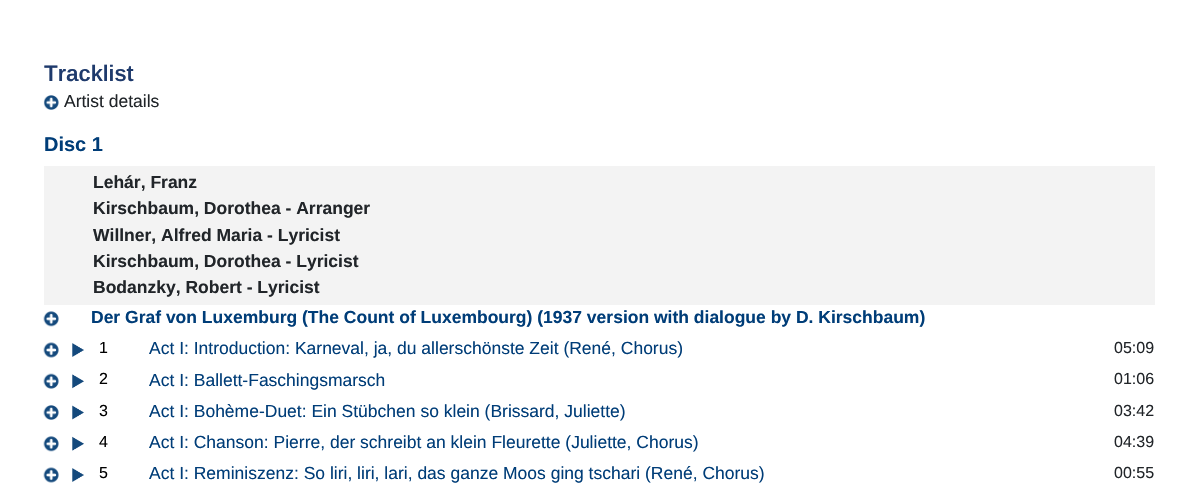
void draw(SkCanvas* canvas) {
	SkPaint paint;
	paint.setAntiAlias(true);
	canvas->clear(0xffffffff);
	SkFont f1(fontMgr->matchFamilyStyle("Arimo", SkFontStyle(600, SkFontStyle::kNormal_Width, SkFontStyle::kUpright_Slant)), 22.5);
	f1.setSubpixel(true);
	paint.setColor(0xff1e3a6c);
	canvas->drawString("Tracklist", 44, 81, f1, paint);
	canvas->drawImageRect(SkImages::DeferredFromEncodedData(SkData::MakeFromFileName("img1.png")), SkRect::MakeXYWH(43, 95, 16, 15), SkSamplingOptions());
	SkFont f2(fontMgr->matchFamilyStyle("Arimo", SkFontStyle::Normal()), 17.5);
	f2.setSubpixel(true);
	paint.setColor(0xff212529);
	canvas->drawString("Artist details", 64, 107, f2, paint);
	SkFont f3(fontMgr->matchFamilyStyle("Arimo", SkFontStyle::Bold()), 20);
	f3.setSubpixel(true);
	paint.setColor(0xff003d78);
	canvas->drawString("Disc 1", 44, 151, f3, paint);
	paint.setColor(0xfff3f3f3);
	canvas->drawRect(SkRect::MakeXYWH(44, 166, 1111, 139), paint);
	SkFont f4(fontMgr->matchFamilyStyle("Arimo", SkFontStyle::Bold()), 17.5);
	f4.setSubpixel(true);
	paint.setColor(0xff212529);
	canvas->drawString("Lehár, Franz", 93, 188, f4, paint);
	canvas->drawString("Kirschbaum, Dorothea - Arranger", 93, 214, f4, paint);
	canvas->drawString("Willner, Alfred Maria - Lyricist", 93, 241, f4, paint);
	canvas->drawString("Kirschbaum, Dorothea - Lyricist", 93, 267, f4, paint);
	canvas->drawString("Bodanzky, Robert - Lyricist", 93, 293, f4, paint);
	canvas->drawImageRect(SkImages::DeferredFromEncodedData(SkData::MakeFromFileName("img2.png")), SkRect::MakeXYWH(43, 311, 16, 16), SkSamplingOptions());
	paint.setColor(0xff003d78);
	canvas->drawString("Der Graf von Luxemburg (The Count of Luxembourg) (1937 version with dialogue by D. Kirschbaum)", 91, 323, f4, paint);
	canvas->drawImageRect(SkImages::DeferredFromEncodedData(SkData::MakeFromFileName("img3.png")), SkRect::MakeXYWH(43, 342, 16, 16), SkSamplingOptions());
	canvas->drawImageRect(SkImages::DeferredFromEncodedData(SkData::MakeFromFileName("img4.png")), SkRect::MakeXYWH(72, 343, 12, 14), SkSamplingOptions());
	SkFont f5(fontMgr->matchFamilyStyle("Arimo", SkFontStyle::Normal()), 16);
	f5.setSubpixel(true);
	paint.setColor(0xff000000);
	canvas->drawString("1", 99, 353, f5, paint);
	paint.setColor(0xff003d78);
	canvas->drawString("Act I: Introduction: Karneval, ja, du allerschönste Zeit (René, Chorus)", 149, 354, f2, paint);
	paint.setColor(0xff212529);
	canvas->drawString("05:09", 1114, 353, f5, paint);
	canvas->drawImageRect(SkImages::DeferredFromEncodedData(SkData::MakeFromFileName("img5.png")), SkRect::MakeXYWH(43, 373, 16, 16), SkSamplingOptions());
	canvas->drawImageRect(SkImages::DeferredFromEncodedData(SkData::MakeFromFileName("img6.png")), SkRect::MakeXYWH(72, 374, 12, 15), SkSamplingOptions());
	paint.setColor(0xff000000);
	canvas->drawString("2", 99, 384, f5, paint);
	paint.setColor(0xff003d78);
	canvas->drawString("Act I: Ballett-Faschingsmarsch", 149, 386, f2, paint);
	paint.setColor(0xff212529);
	canvas->drawString("01:06", 1114, 384, f5, paint);
	canvas->drawImageRect(SkImages::DeferredFromEncodedData(SkData::MakeFromFileName("img7.png")), SkRect::MakeXYWH(43, 405, 16, 15), SkSamplingOptions());
	canvas->drawImageRect(SkImages::DeferredFromEncodedData(SkData::MakeFromFileName("img8.png")), SkRect::MakeXYWH(72, 405, 12, 15), SkSamplingOptions());
	paint.setColor(0xff000000);
	canvas->drawString("3", 99, 416, f5, paint);
	paint.setColor(0xff003d78);
	canvas->drawString("Act I: Bohème-Duet: Ein Stübchen so klein (Brissard, Juliette)", 149, 417, f2, paint);
	paint.setColor(0xff212529);
	canvas->drawString("03:42", 1114, 416, f5, paint);
	canvas->drawImageRect(SkImages::DeferredFromEncodedData(SkData::MakeFromFileName("img2.png")), SkRect::MakeXYWH(43, 436, 16, 16), SkSamplingOptions());
	canvas->drawImageRect(SkImages::DeferredFromEncodedData(SkData::MakeFromFileName("img9.png")), SkRect::MakeXYWH(72, 436, 12, 15), SkSamplingOptions());
	paint.setColor(0xff000000);
	canvas->drawString("4", 99, 447, f5, paint);
	paint.setColor(0xff003d78);
	canvas->drawString("Act I: Chanson: Pierre, der schreibt an klein Fleurette (Juliette, Chorus)", 149, 448, f2, paint);
	paint.setColor(0xff212529);
	canvas->drawString("04:39", 1114, 447, f5, paint);
	canvas->drawImageRect(SkImages::DeferredFromEncodedData(SkData::MakeFromFileName("img3.png")), SkRect::MakeXYWH(43, 467, 16, 16), SkSamplingOptions());
	canvas->drawImageRect(SkImages::DeferredFromEncodedData(SkData::MakeFromFileName("img4.png")), SkRect::MakeXYWH(72, 468, 12, 14), SkSamplingOptions());
	paint.setColor(0xff000000);
	canvas->drawString("5", 99, 478, f5, paint);
	paint.setColor(0xff003d78);
	canvas->drawString("Act I: Reminiszenz: So liri, liri, lari, das ganze Moos ging tschari (René, Chorus)", 149, 479, f2, paint);
	paint.setColor(0xff212529);
	canvas->drawString("00:55", 1114, 478, f5, paint);
}
